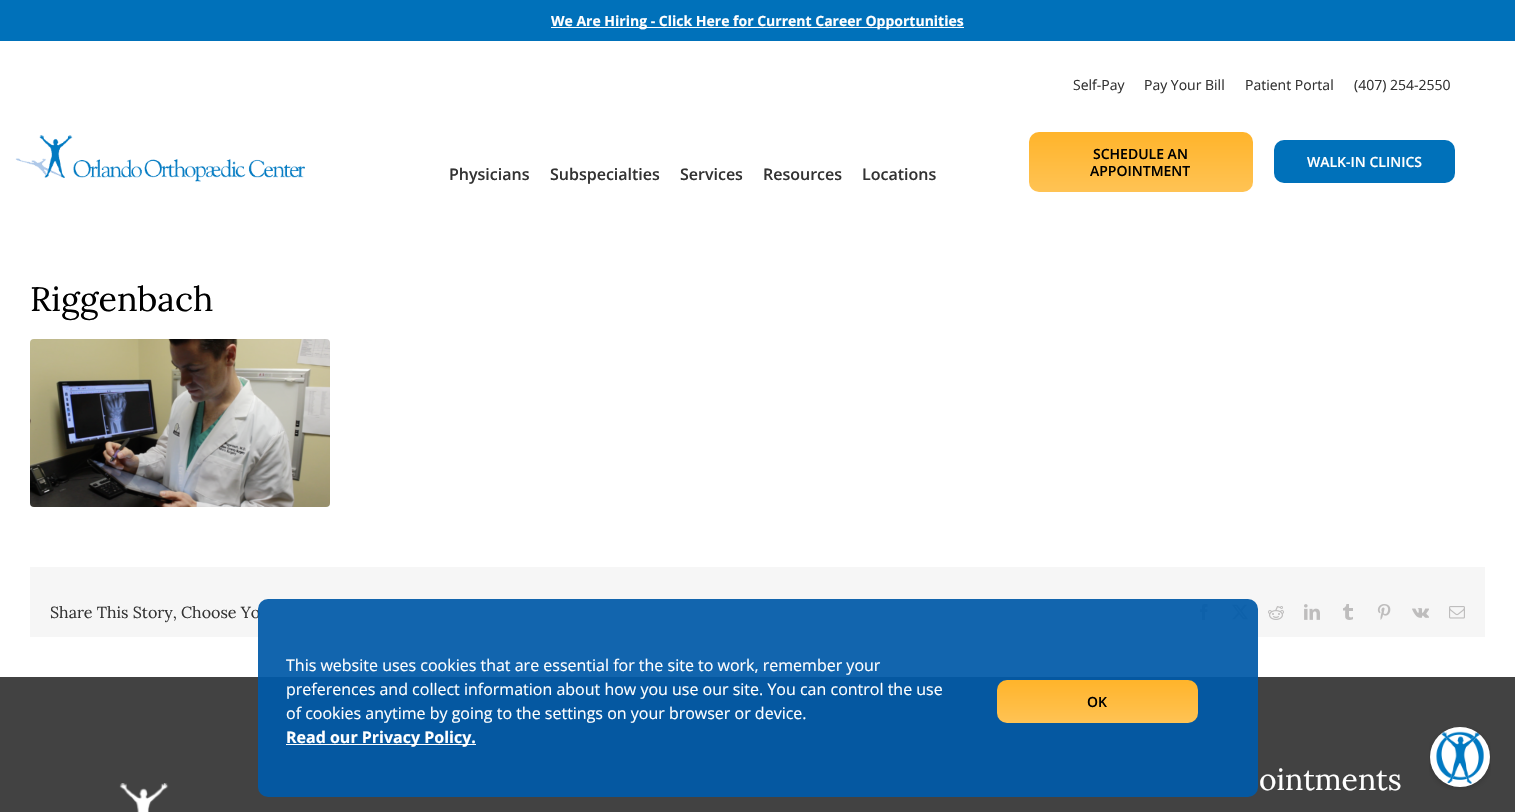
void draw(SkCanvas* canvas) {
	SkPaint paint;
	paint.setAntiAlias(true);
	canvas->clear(0xffffffff);
	paint.setColor(0xff0071ba);
	canvas->drawRect(SkRect::MakeXYWH(0, 0, 1515, 41), paint);
	paint.setColor(0xffffffff);
	canvas->drawRect(SkRect::MakeXYWH(551, 27, 413, 1), paint);
	SkFont f1(fontMgr->matchFamilyStyle("Open Sans", SkFontStyle::Bold()), 14);
	f1.setSubpixel(true);
	canvas->drawString("We Are Hiring - Click Here for Current Career Opportunities", 551, 26, f1, paint);
	SkFont f2(fontMgr->matchFamilyStyle("Open Sans", SkFontStyle::Normal()), 14);
	f2.setSubpixel(true);
	paint.setColor(0xff333333);
	canvas->drawString("Self-Pay", 1073, 90, f2, paint);
	canvas->drawString("Pay Your Bill", 1144, 90, f2, paint);
	canvas->drawString("Patient Portal", 1245, 90, f2, paint);
	canvas->drawString("(407) 254-2550", 1354, 90, f2, paint);
	canvas->drawImageRect(SkImages::DeferredFromEncodedData(SkData::MakeFromFileName("img1.png")), SkRect::MakeXYWH(15, 135, 290, 47), SkSamplingOptions());
	{
		const SkColor colors[] = {0xffffb42b, 0xffffc354};
		const float stops[] = {0, 1};
		const SkPoint ends[] = {{1141, 132}, {1141, 192}};
		paint.setShader(SkGradientShader::MakeLinear(ends, colors, stops, 2, SkTileMode::kClamp));
		paint.setAlpha(255);
	}
	canvas->drawRoundRect(SkRect::MakeXYWH(1029, 132, 224, 60), 10, 10, paint);
	SkFont f3(fontMgr->matchFamilyStyle("Open Sans", SkFontStyle(600, SkFontStyle::kNormal_Width, SkFontStyle::kUpright_Slant)), 14);
	f3.setSubpixel(true);
	paint.setShader(nullptr);
	paint.setColor(0xff000000);
	canvas->drawString("SCHEDULE AN", 1093, 159, f3, paint);
	canvas->drawString("APPOINTMENT", 1090, 176, f3, paint);
	paint.setColor(0xff0071ba);
	canvas->drawRoundRect(SkRect::MakeXYWH(1274, 140, 181, 43), 10, 10, paint);
	paint.setColor(0xffffffff);
	canvas->drawString("WALK-IN CLINICS", 1307, 167, f3, paint);
	SkFont f4(fontMgr->matchFamilyStyle("Open Sans", SkFontStyle(600, SkFontStyle::kNormal_Width, SkFontStyle::kUpright_Slant)), 16);
	f4.setSubpixel(true);
	paint.setColor(0xff333333);
	canvas->drawString("Physicians", 449, 180, f4, paint);
	canvas->drawString("Subspecialties", 550, 180, f4, paint);
	canvas->drawString("Services", 680, 180, f4, paint);
	canvas->drawString("Resources", 763, 180, f4, paint);
	canvas->drawString("Locations", 862, 180, f4, paint);
	SkFont f5(fontMgr->matchFamilyStyle("Lora", SkFontStyle::Normal()), 34);
	f5.setSubpixel(true);
	paint.setColor(0xff000000);
	canvas->drawString("Riggenbach", 30, 311, f5, paint);
	canvas->drawImageRect(SkImages::DeferredFromEncodedData(SkData::MakeFromFileName("img2.png")), SkRect::MakeXYWH(30, 339, 300, 168), SkSamplingOptions());
	paint.setColor(0xfff6f6f6);
	canvas->drawRect(SkRect::MakeXYWH(30, 567, 1455, 70), paint);
	SkFont f6(fontMgr->matchFamilyStyle("Lora", SkFontStyle::Normal()), 16);
	f6.setSubpixel(true);
	paint.setColor(0xff333333);
	canvas->drawString("Share This Story, Choose Yo", 50, 618, f6, paint);
	canvas->drawImageRect(SkImages::DeferredFromEncodedData(SkData::MakeFromFileName("img3.png")), SkRect::MakeXYWH(1200, 604, 8, 16), SkSamplingOptions());
	canvas->drawImageRect(SkImages::DeferredFromEncodedData(SkData::MakeFromFileName("img4.png")), SkRect::MakeXYWH(1232, 604, 16, 16), SkSamplingOptions());
	canvas->drawImageRect(SkImages::DeferredFromEncodedData(SkData::MakeFromFileName("img5.png")), SkRect::MakeXYWH(1268, 606, 16, 14), SkSamplingOptions());
	canvas->drawImageRect(SkImages::DeferredFromEncodedData(SkData::MakeFromFileName("img6.png")), SkRect::MakeXYWH(1304, 604, 16, 16), SkSamplingOptions());
	canvas->drawImageRect(SkImages::DeferredFromEncodedData(SkData::MakeFromFileName("img7.png")), SkRect::MakeXYWH(1343, 604, 10, 16), SkSamplingOptions());
	canvas->drawImageRect(SkImages::DeferredFromEncodedData(SkData::MakeFromFileName("img8.png")), SkRect::MakeXYWH(1377, 604, 14, 16), SkSamplingOptions());
	canvas->drawImageRect(SkImages::DeferredFromEncodedData(SkData::MakeFromFileName("img9.png")), SkRect::MakeXYWH(1412, 608, 17, 10), SkSamplingOptions());
	canvas->drawImageRect(SkImages::DeferredFromEncodedData(SkData::MakeFromFileName("img10.png")), SkRect::MakeXYWH(1449, 606, 16, 13), SkSamplingOptions());
	paint.setColor(0xff424242);
	canvas->drawRect(SkRect::MakeXYWH(0, 677, 1515, 135), paint);
	SkFont f7(fontMgr->matchFamilyStyle("Lora", SkFontStyle::Normal()), 30);
	f7.setSubpixel(true);
	paint.setColor(0xffffffff);
	canvas->drawString("ointments", 1259, 790, f7, paint);
	canvas->drawImageRect(SkImages::DeferredFromEncodedData(SkData::MakeFromFileName("img11.png")), SkRect::MakeXYWH(119, 783, 50, 29), SkSamplingOptions());
	paint.setColor(0xed0059a8);
	canvas->drawRoundRect(SkRect::MakeXYWH(258, 599, 1000, 198), 10, 10, paint);
	SkFont f8(fontMgr->matchFamilyStyle("Open Sans", SkFontStyle::Normal()), 16);
	f8.setSubpixel(true);
	paint.setColor(0xffffffff);
	canvas->drawString("This website uses cookies that are essential for the site to work, remember your", 286, 671, f8, paint);
	canvas->drawString("preferences and collect information about how you use our site. You can control the use", 286, 695, f8, paint);
	canvas->drawString("of cookies anytime by going to the settings on your browser or device.", 286, 719, f8, paint);
	canvas->drawRect(SkRect::MakeXYWH(286, 744, 190, 1), paint);
	SkFont f9(fontMgr->matchFamilyStyle("Open Sans", SkFontStyle::Bold()), 16);
	f9.setSubpixel(true);
	canvas->drawString("Read our Privacy Policy.", 286, 743, f9, paint);
	{
		const SkColor colors[] = {0xffffb42b, 0xffffc354};
		const float stops[] = {0, 1};
		const SkPoint ends[] = {{1098, 680}, {1098, 723}};
		paint.setShader(SkGradientShader::MakeLinear(ends, colors, stops, 2, SkTileMode::kClamp));
		paint.setAlpha(255);
	}
	canvas->drawRoundRect(SkRect::MakeXYWH(997, 680, 201, 43), 10, 10, paint);
	paint.setShader(nullptr);
	paint.setColor(0xff000000);
	canvas->drawString("OK", 1087, 707, f3, paint);
	canvas->drawImageRect(SkImages::DeferredFromEncodedData(SkData::MakeFromFileName("img12.png")), SkRect::MakeXYWH(1429, 727, 62, 63), SkSamplingOptions());
}
